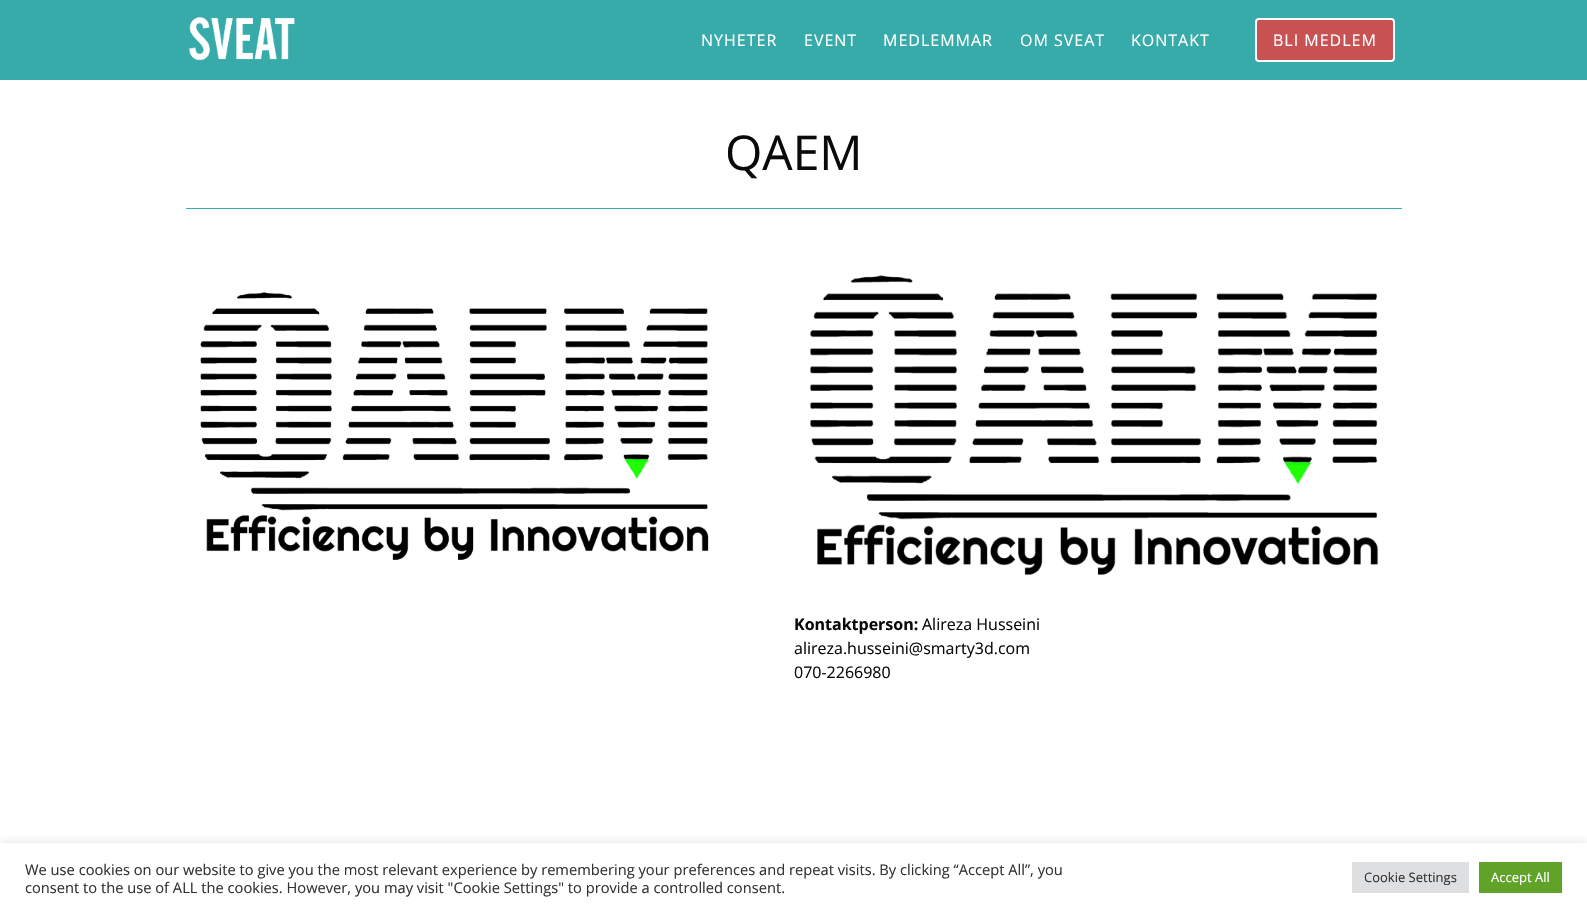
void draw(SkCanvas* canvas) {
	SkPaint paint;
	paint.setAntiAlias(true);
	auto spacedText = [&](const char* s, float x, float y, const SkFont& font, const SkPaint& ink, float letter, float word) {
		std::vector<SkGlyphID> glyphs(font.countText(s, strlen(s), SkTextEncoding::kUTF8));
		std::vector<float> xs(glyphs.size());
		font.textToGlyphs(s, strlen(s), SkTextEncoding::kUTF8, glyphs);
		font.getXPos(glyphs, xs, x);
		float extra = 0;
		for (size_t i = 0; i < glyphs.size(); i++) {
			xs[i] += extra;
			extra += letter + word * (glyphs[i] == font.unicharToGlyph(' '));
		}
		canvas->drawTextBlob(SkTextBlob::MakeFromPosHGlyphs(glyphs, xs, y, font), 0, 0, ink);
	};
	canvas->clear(0xffffffff);
	paint.setColor(0xff37aaaa);
	canvas->drawRect(SkRect::MakeXYWH(0, 0, 1587, 80), paint);
	canvas->drawImageRect(SkImages::DeferredFromEncodedData(SkData::MakeFromFileName("img1.png")), SkRect::MakeXYWH(188, 17, 107, 44), SkSamplingOptions());
	SkFont f1(fontMgr->matchFamilyStyle("Open Sans", SkFontStyle::Normal()), 16);
	f1.setSubpixel(true);
	paint.setColor(0xffffffff);
	spacedText("NYHETER", 701, 46, f1, paint, 1, 0);
	spacedText("EVENT", 804, 46, f1, paint, 1, 0);
	spacedText("MEDLEMMAR", 883, 46, f1, paint, 1, 0);
	spacedText("OM SVEAT", 1020, 46, f1, paint, 1, 0);
	spacedText("KONTAKT", 1131, 46, f1, paint, 1, 0);
	paint.setColor(0xffc85151);
	canvas->drawRoundRect(SkRect::MakeXYWH(1256, 19, 138, 42), 3, 3, paint);
	paint.setStroke(true);
	paint.setStrokeWidth(2);
	paint.setColor(0xffffffff);
	canvas->drawRoundRect(SkRect::MakeXYWH(1256, 19, 138, 42), 3, 3, paint);
	paint.setStroke(false);
	spacedText("BLI MEDLEM", 1273, 46, f1, paint, 1, 0);
	paint.setColor(0xff38abab);
	canvas->drawRect(SkRect::MakeXYWH(186, 208, 1216, 1), paint);
	SkFont f2(fontMgr->matchFamilyStyle("Open Sans", SkFontStyle::Normal()), 48);
	f2.setSubpixel(true);
	paint.setColor(0xff0a0a0a);
	canvas->drawString("QAEM", 725, 170, f2, paint);
	canvas->drawImageRect(SkImages::DeferredFromEncodedData(SkData::MakeFromFileName("img2.png")), SkRect::MakeXYWH(200, 292, 509, 268), SkSamplingOptions());
	canvas->drawImageRect(SkImages::DeferredFromEncodedData(SkData::MakeFromFileName("img3.png")), SkRect::MakeXYWH(810, 275, 569, 300), SkSamplingOptions());
	SkFont f3(fontMgr->matchFamilyStyle("Open Sans", SkFontStyle::Bold()), 16);
	f3.setSubpixel(true);
	canvas->drawString("Kontaktperson:", 794, 630, f3, paint);
	canvas->drawString("Alireza Husseini", 922, 630, f1, paint);
	canvas->drawString("alireza.husseini@smarty3d.com", 794, 654, f1, paint);
	canvas->drawString("070-2266980", 794, 678, f1, paint);
	canvas->save();
	canvas->clipRect(SkRect::MakeXYWH(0, 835, 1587, 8));
	paint.setColor(0x4dacabab);
	paint.setMaskFilter(SkMaskFilter::MakeBlur(kNormal_SkBlurStyle, 5));
	canvas->drawRect(SkRect::MakeXYWH(0, 842, 1587, 69), paint);
	paint.setMaskFilter(nullptr);
	canvas->restore();
	SkFont f4(fontMgr->matchFamilyStyle("Open Sans", SkFontStyle::Normal()), 14.67);
	f4.setSubpixel(true);
	paint.setColor(0xff333333);
	canvas->drawString("We use cookies on our website to give you the most relevant experience by remembering your preferences and repeat visits. By clicking “Accept All”, you", 25, 875, f4, paint);
	canvas->drawString("consent to the use of ALL the cookies. However, you may visit \"Cookie Settings\" to provide a controlled consent.", 25, 893, f4, paint);
	paint.setColor(0xffdedfe0);
	canvas->drawRect(SkRect::MakeXYWH(1352, 862, 117, 31), paint);
	SkFont f5(fontMgr->matchFamilyStyle("Open Sans", SkFontStyle::Normal()), 13);
	f5.setSubpixel(true);
	paint.setColor(0xff333333);
	canvas->drawString("Cookie Settings", 1364, 882, f5, paint);
	paint.setColor(0xff61a229);
	canvas->drawRect(SkRect::MakeXYWH(1479, 862, 83, 31), paint);
	paint.setColor(0xffffffff);
	canvas->drawString("Accept All", 1491, 882, f5, paint);
}
